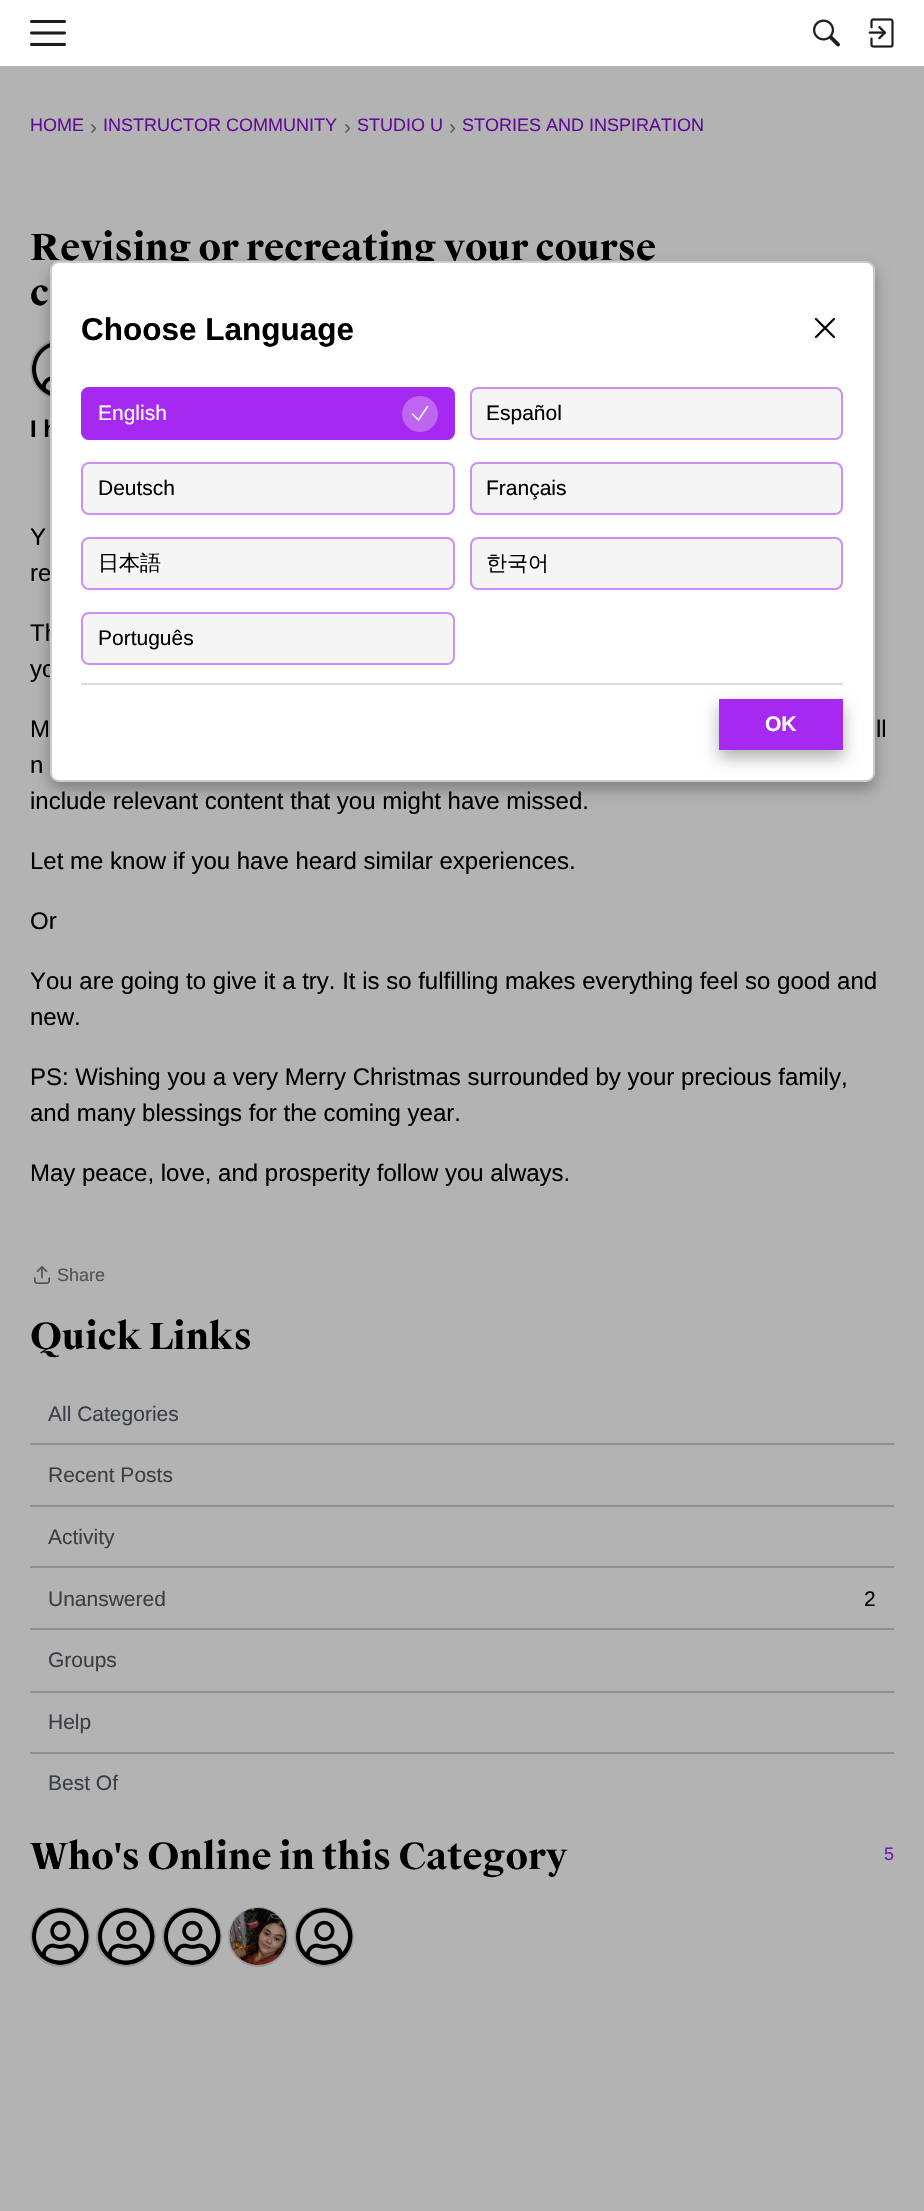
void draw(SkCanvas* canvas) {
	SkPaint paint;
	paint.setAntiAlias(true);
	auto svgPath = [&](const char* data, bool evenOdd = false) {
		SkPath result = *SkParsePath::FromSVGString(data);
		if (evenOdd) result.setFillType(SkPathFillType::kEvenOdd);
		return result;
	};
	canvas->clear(0xffb3b3b3);
	paint.setColor(0xffffffff);
	canvas->drawRect(SkRect::MakeXYWH(0, 0, 924, 66), paint);
	canvas->drawImageRect(SkImages::DeferredFromEncodedData(SkData::MakeFromFileName("img1.png")), SkRect::MakeXYWH(30, 20, 36, 26), SkSamplingOptions());
	canvas->drawImageRect(SkImages::DeferredFromEncodedData(SkData::MakeFromFileName("img2.png")), SkRect::MakeXYWH(813, 19, 27, 28), SkSamplingOptions());
	canvas->drawImageRect(SkImages::DeferredFromEncodedData(SkData::MakeFromFileName("img3.png")), SkRect::MakeXYWH(868, 18, 26, 30), SkSamplingOptions());
	SkFont f1(fontMgr->matchFamilyStyle("Liberation Sans", SkFontStyle::Normal()), 18);
	f1.setSubpixel(true);
	paint.setColor(0xff610b96);
	canvas->drawString("HOME", 30, 131, f1, paint);
	SkFont f2(fontMgr->matchFamilyStyle("Liberation Sans", SkFontStyle::Normal()), 21);
	f2.setSubpixel(true);
	paint.setColor(0xff5a5a5a);
	canvas->drawString("›", 90, 134, f2, paint);
	paint.setColor(0xff610b96);
	canvas->drawString("INSTRUCTOR COMMUNITY", 103, 131, f1, paint);
	paint.setColor(0xff5a5a5a);
	canvas->drawString("›", 344, 134, f2, paint);
	paint.setColor(0xff610b96);
	canvas->drawString("STUDIO U", 357, 131, f1, paint);
	paint.setColor(0xff5a5a5a);
	canvas->drawString("›", 449, 134, f2, paint);
	paint.setColor(0xff610b96);
	canvas->drawString("STORIES AND INSPIRATION", 462, 131, f1, paint);
	SkFont f3(fontMgr->matchFamilyStyle("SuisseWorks", SkFontStyle::Bold()), 36);
	f3.setSubpixel(true);
	paint.setColor(0xff000000);
	canvas->drawString("Revising or recreating your course", 30, 260, f3, paint);
	canvas->drawString("c", 30, 305, f3, paint);
	paint.setStroke(true);
	paint.setStrokeWidth(2);
	paint.setColor(0xff989898);
	canvas->drawCircle(60, 369, 29, paint);
	canvas->drawImageRect(SkImages::DeferredFromEncodedData(SkData::MakeFromFileName("img4.png")), SkRect::MakeXYWH(32, 343, 18, 53), SkSamplingOptions());
	SkFont f4(fontMgr->matchFamilyStyle("Liberation Sans", SkFontStyle::Bold()), 24);
	f4.setSubpixel(true);
	paint.setStroke(false);
	paint.setColor(0xff000000);
	canvas->drawString("I h", 30, 437, f4, paint);
	SkFont f5(fontMgr->matchFamilyStyle("Liberation Sans", SkFontStyle::Normal()), 24);
	f5.setSubpixel(true);
	canvas->drawString("Y", 30, 545, f5, paint);
	canvas->drawString("re", 30, 581, f5, paint);
	canvas->drawString("Th", 30, 641, f5, paint);
	canvas->drawString("yo", 30, 677, f5, paint);
	canvas->drawString("M", 30, 737, f5, paint);
	canvas->drawString("ll", 876, 737, f5, paint);
	canvas->drawString("n", 30, 773, f5, paint);
	canvas->drawString("include relevant content that you might have missed.", 30, 809, f5, paint);
	canvas->drawString("Let me know if you have heard similar experiences.", 30, 869, f5, paint);
	canvas->drawString("Or", 30, 929, f5, paint);
	canvas->drawString("You are going to give it a try. It is so fulfilling makes everything feel so good and", 30, 989, f5, paint);
	canvas->drawString("new.", 30, 1025, f5, paint);
	canvas->drawString("PS: Wishing you a very Merry Christmas surrounded by your precious family,", 30, 1085, f5, paint);
	canvas->drawString("and many blessings for the coming year.", 30, 1121, f5, paint);
	canvas->drawString("May peace, love, and prosperity follow you always.", 30, 1181, f5, paint);
	canvas->drawImageRect(SkImages::DeferredFromEncodedData(SkData::MakeFromFileName("img5.png")), SkRect::MakeXYWH(34, 1266, 16, 18), SkSamplingOptions());
	paint.setColor(0xff535353);
	canvas->drawString("Share", 57, 1281, f1, paint);
	paint.setColor(0xff000000);
	canvas->drawString("Quick Links", 30, 1349, f3, paint);
	paint.setColor(0xff8f8f8f);
	canvas->drawRect(SkRect::MakeXYWH(30, 1443, 864, 2), paint);
	paint.setColor(0xff3b3f45);
	canvas->drawString("All Categories", 48, 1421, f2, paint);
	paint.setColor(0xff8f8f8f);
	canvas->drawRect(SkRect::MakeXYWH(30, 1505, 864, 2), paint);
	paint.setColor(0xff3b3f45);
	canvas->drawString("Recent Posts", 48, 1482, f2, paint);
	paint.setColor(0xff8f8f8f);
	canvas->drawRect(SkRect::MakeXYWH(30, 1566, 864, 2), paint);
	paint.setColor(0xff3b3f45);
	canvas->drawString("Activity", 48, 1544, f2, paint);
	paint.setColor(0xff8f8f8f);
	canvas->drawRect(SkRect::MakeXYWH(30, 1628, 864, 2), paint);
	paint.setColor(0xff3b3f45);
	canvas->drawString("Unanswered", 48, 1606, f2, paint);
	paint.setColor(0xff000000);
	canvas->drawString("2", 864, 1606, f2, paint);
	paint.setColor(0xff8f8f8f);
	canvas->drawRect(SkRect::MakeXYWH(30, 1691, 864, 2), paint);
	paint.setColor(0xff3b3f45);
	canvas->drawString("Groups", 48, 1667, f2, paint);
	paint.setColor(0xff8f8f8f);
	canvas->drawRect(SkRect::MakeXYWH(30, 1752, 864, 2), paint);
	paint.setColor(0xff3b3f45);
	canvas->drawString("Help", 48, 1729, f2, paint);
	canvas->drawString("Best Of", 48, 1790, f2, paint);
	paint.setColor(0xff000000);
	canvas->drawString("Who's Online in this Category", 30, 1869, f3, paint);
	paint.setColor(0xff731da8);
	canvas->drawString("5", 884, 1860, f1, paint);
	paint.setStroke(true);
	paint.setColor(0xff989898);
	canvas->drawCircle(60, 1937, 29, paint);
	canvas->drawImageRect(SkImages::DeferredFromEncodedData(SkData::MakeFromFileName("img6.png")), SkRect::MakeXYWH(32, 1908, 57, 57), SkSamplingOptions());
	canvas->drawCircle(126, 1937, 29, paint);
	canvas->drawImageRect(SkImages::DeferredFromEncodedData(SkData::MakeFromFileName("img6.png")), SkRect::MakeXYWH(98, 1908, 57, 57), SkSamplingOptions());
	canvas->drawCircle(192, 1937, 29, paint);
	canvas->drawImageRect(SkImages::DeferredFromEncodedData(SkData::MakeFromFileName("img6.png")), SkRect::MakeXYWH(164, 1908, 57, 57), SkSamplingOptions());
	canvas->drawCircle(258, 1937, 29, paint);
	canvas->drawImageRect(SkImages::DeferredFromEncodedData(SkData::MakeFromFileName("img7.png")), SkRect::MakeXYWH(229, 1908, 58, 57), SkSamplingOptions());
	canvas->drawCircle(324, 1937, 29, paint);
	canvas->drawImageRect(SkImages::DeferredFromEncodedData(SkData::MakeFromFileName("img6.png")), SkRect::MakeXYWH(296, 1908, 57, 57), SkSamplingOptions());
	paint.setStroke(false);
	paint.setColor(0x4d000000);
	paint.setMaskFilter(SkMaskFilter::MakeBlur(kNormal_SkBlurStyle, 7.5));
	canvas->drawRoundRect(SkRect::MakeXYWH(50, 269, 825, 520), 9, 9, paint);
	paint.setMaskFilter(nullptr);
	paint.setColor(0xffffffff);
	canvas->drawRoundRect(SkRect::MakeXYWH(51, 262, 823, 519), 8, 8, paint);
	paint.setStroke(true);
	paint.setColor(0xffcccccc);
	canvas->drawRoundRect(SkRect::MakeXYWH(51, 262, 823, 519), 8, 8, paint);
	SkFont f6(fontMgr->matchFamilyStyle("Liberation Sans", SkFontStyle::Bold()), 31.5);
	f6.setSubpixel(true);
	paint.setStroke(false);
	paint.setColor(0xff000000);
	canvas->drawString("Choose Language", 81, 340, f6, paint);
	paint.setStroke(true);
	paint.setStrokeWidth(2.2);
	paint.setStrokeCap(SkPaint::kRound_Cap);
	paint.setStrokeJoin(SkPaint::kRound_Join);
	canvas->drawPath(svgPath("M816 337L834 319M816 319L834 337"), paint);
	paint.setStroke(false);
	paint.setColor(0xffa529f0);
	canvas->drawRoundRect(SkRect::MakeXYWH(81, 387, 374, 53), 8, 8, paint);
	paint.setStroke(true);
	paint.setStrokeWidth(2);
	paint.setStrokeCap(SkPaint::kButt_Cap);
	paint.setStrokeJoin(SkPaint::kMiter_Join);
	paint.setColor(0x80a529f0);
	canvas->drawRoundRect(SkRect::MakeXYWH(82, 388, 372, 51), 7, 7, paint);
	paint.setStroke(false);
	paint.setColor(0xffffffff);
	canvas->drawString("English", 98, 420, f2, paint);
	paint.setColor(0xffbc66f1);
	canvas->drawCircle(420, 414, 18, paint);
	paint.setStroke(true);
	paint.setStrokeWidth(1.5);
	paint.setStrokeCap(SkPaint::kRound_Cap);
	paint.setStrokeJoin(SkPaint::kRound_Join);
	paint.setColor(0xffffffff);
	canvas->drawPath(svgPath("M412.5 414L418.5 420L427.5 406.5"), paint);
	paint.setStroke(false);
	paint.setColor(0xfff5f5f6);
	canvas->drawRoundRect(SkRect::MakeXYWH(470, 387, 373, 53), 8, 8, paint);
	paint.setStroke(true);
	paint.setStrokeWidth(2);
	paint.setStrokeCap(SkPaint::kButt_Cap);
	paint.setStrokeJoin(SkPaint::kMiter_Join);
	paint.setColor(0x80a529f0);
	canvas->drawRoundRect(SkRect::MakeXYWH(471, 388, 371, 51), 7, 7, paint);
	paint.setStroke(false);
	paint.setColor(0xff000000);
	canvas->drawString("Español", 486, 420, f2, paint);
	paint.setColor(0xfff5f5f6);
	canvas->drawRoundRect(SkRect::MakeXYWH(81, 462, 374, 53), 8, 8, paint);
	paint.setStroke(true);
	paint.setColor(0x80a529f0);
	canvas->drawRoundRect(SkRect::MakeXYWH(82, 463, 372, 51), 7, 7, paint);
	paint.setStroke(false);
	paint.setColor(0xff000000);
	canvas->drawString("Deutsch", 98, 495, f2, paint);
	paint.setColor(0xfff5f5f6);
	canvas->drawRoundRect(SkRect::MakeXYWH(470, 462, 373, 53), 8, 8, paint);
	paint.setStroke(true);
	paint.setColor(0x80a529f0);
	canvas->drawRoundRect(SkRect::MakeXYWH(471, 463, 371, 51), 7, 7, paint);
	paint.setStroke(false);
	paint.setColor(0xff000000);
	canvas->drawString("Français", 486, 495, f2, paint);
	paint.setColor(0xfff5f5f6);
	canvas->drawRoundRect(SkRect::MakeXYWH(81, 537, 374, 53), 8, 8, paint);
	paint.setStroke(true);
	paint.setColor(0x80a529f0);
	canvas->drawRoundRect(SkRect::MakeXYWH(82, 538, 372, 51), 7, 7, paint);
	SkFont f7(fontMgr->matchFamilyStyle("WenQuanYi Zen Hei", SkFontStyle(500, SkFontStyle::kNormal_Width, SkFontStyle::kUpright_Slant)), 21);
	f7.setSubpixel(true);
	paint.setStroke(false);
	paint.setColor(0xff000000);
	canvas->drawString("日本語", 98, 570, f7, paint);
	paint.setColor(0xfff5f5f6);
	canvas->drawRoundRect(SkRect::MakeXYWH(470, 537, 373, 53), 8, 8, paint);
	paint.setStroke(true);
	paint.setColor(0x80a529f0);
	canvas->drawRoundRect(SkRect::MakeXYWH(471, 538, 371, 51), 7, 7, paint);
	paint.setStroke(false);
	paint.setColor(0xff000000);
	canvas->drawString("한국어", 486, 570, f7, paint);
	paint.setColor(0xfff5f5f6);
	canvas->drawRoundRect(SkRect::MakeXYWH(81, 612, 374, 53), 8, 8, paint);
	paint.setStroke(true);
	paint.setColor(0x80a529f0);
	canvas->drawRoundRect(SkRect::MakeXYWH(82, 613, 372, 51), 7, 7, paint);
	paint.setStroke(false);
	paint.setColor(0xff000000);
	canvas->drawString("Português", 98, 645, f2, paint);
	paint.setColor(0xffdddddd);
	canvas->drawRect(SkRect::MakeXYWH(81, 683, 762, 2), paint);
	paint.setColor(0x4d000000);
	paint.setMaskFilter(SkMaskFilter::MakeBlur(kNormal_SkBlurStyle, 7.5));
	canvas->drawRect(SkRect::MakeXYWH(719, 707, 124, 51), paint);
	paint.setMaskFilter(nullptr);
	paint.setColor(0xffa529f0);
	canvas->drawRect(SkRect::MakeXYWH(719, 699, 124, 51), paint);
	SkFont f8(fontMgr->matchFamilyStyle("Liberation Sans", SkFontStyle::Bold()), 21);
	f8.setSubpixel(true);
	paint.setColor(0xffffffff);
	canvas->drawString("OK", 765, 731, f8, paint);
}
